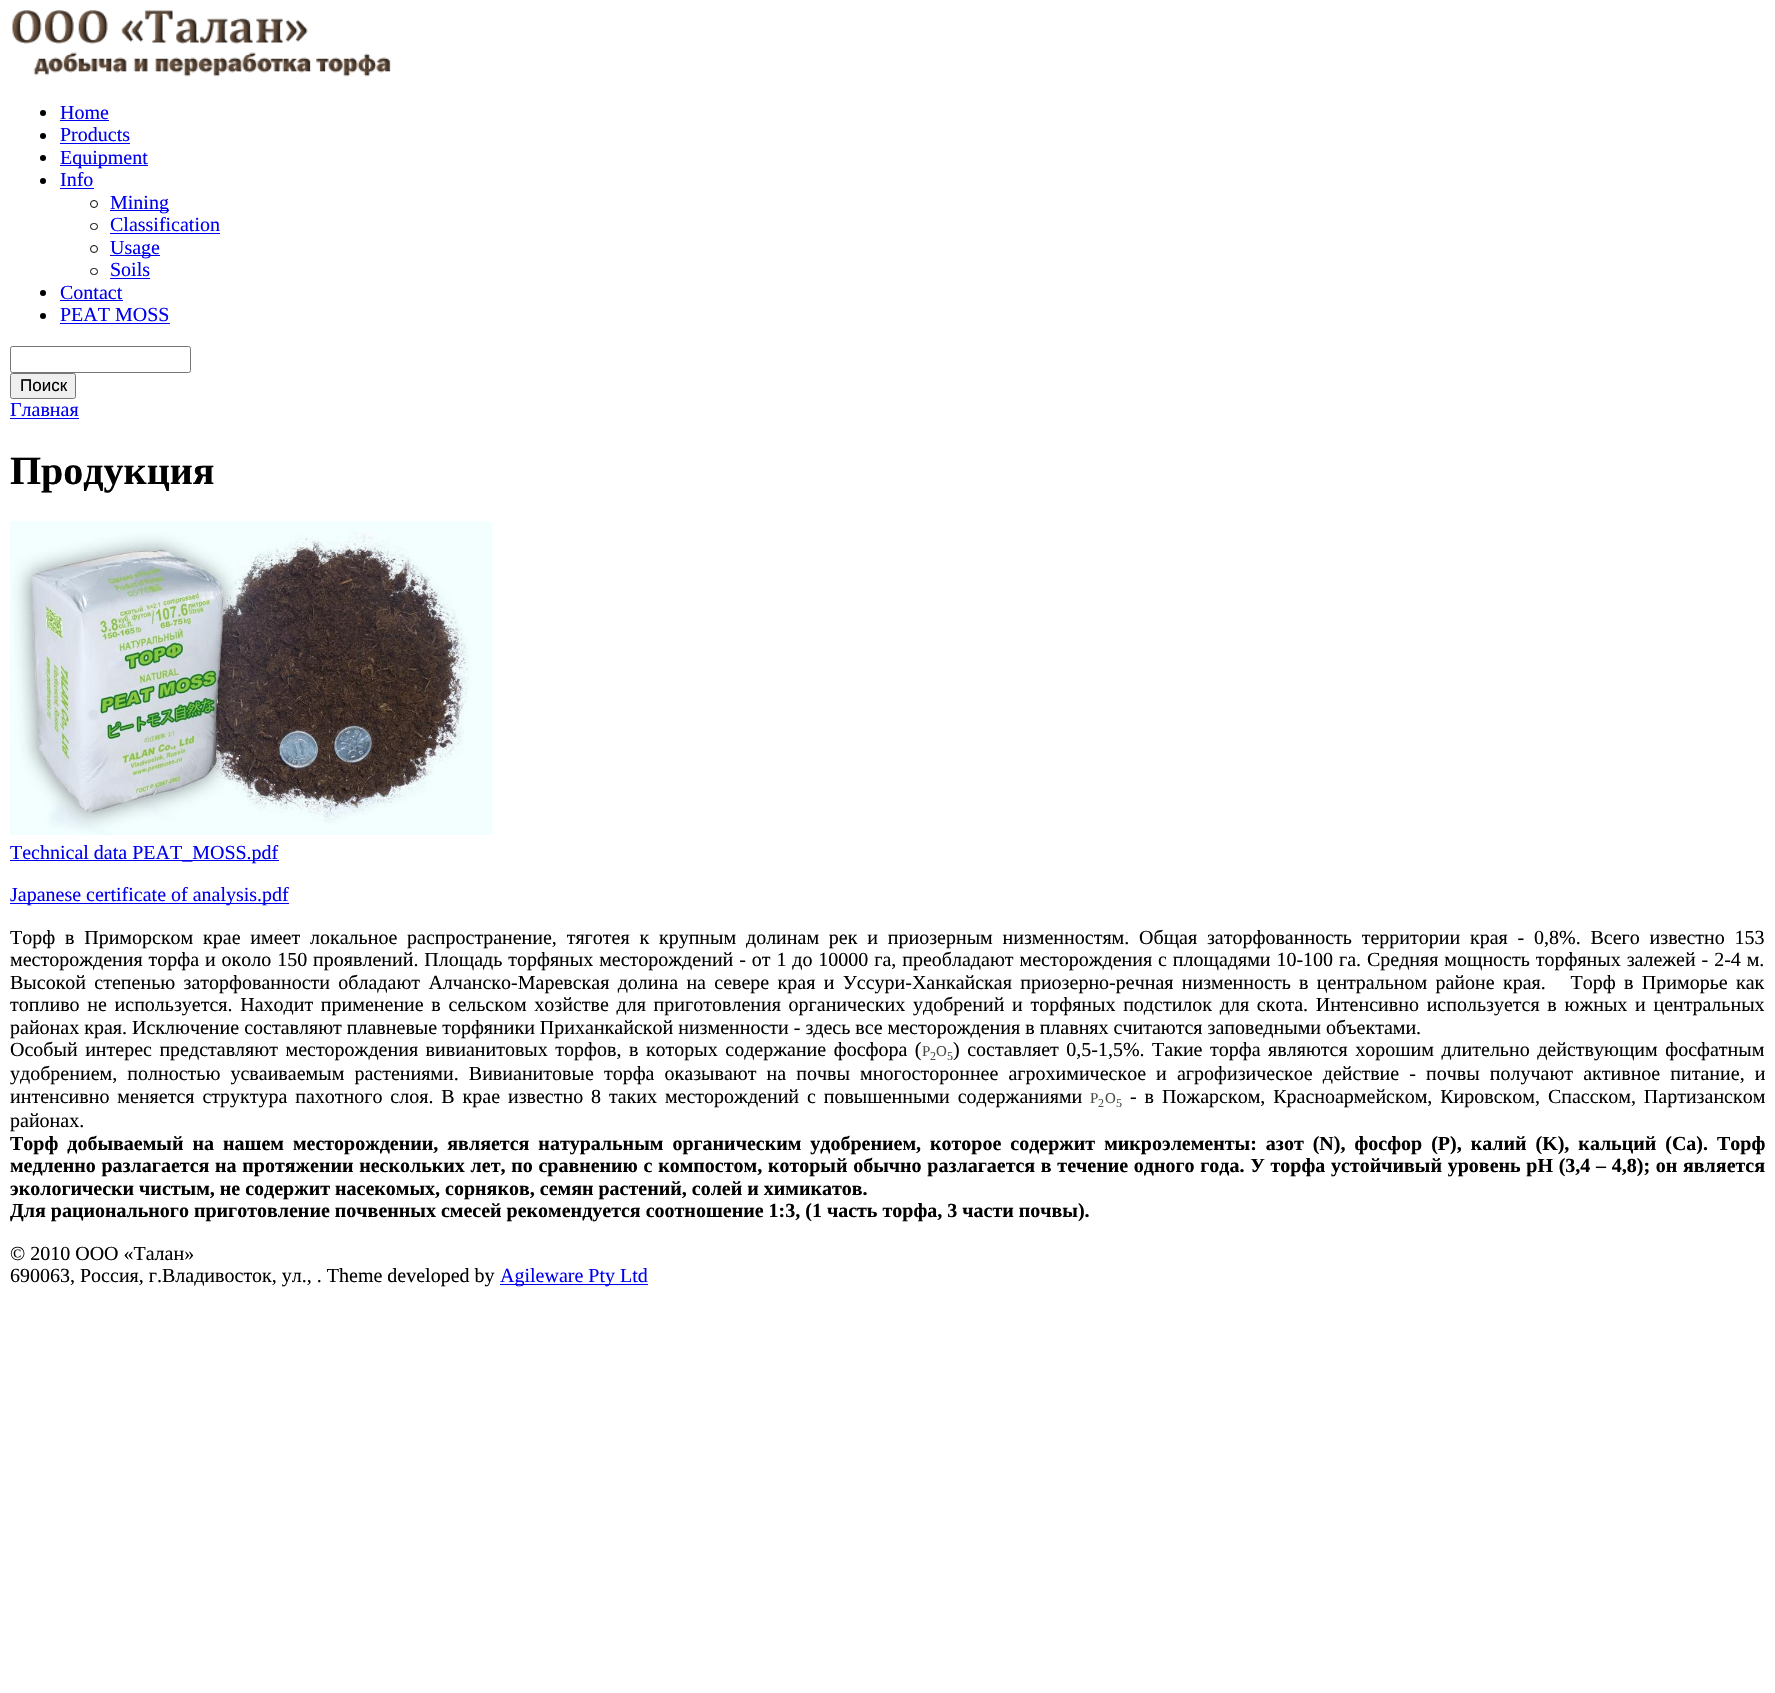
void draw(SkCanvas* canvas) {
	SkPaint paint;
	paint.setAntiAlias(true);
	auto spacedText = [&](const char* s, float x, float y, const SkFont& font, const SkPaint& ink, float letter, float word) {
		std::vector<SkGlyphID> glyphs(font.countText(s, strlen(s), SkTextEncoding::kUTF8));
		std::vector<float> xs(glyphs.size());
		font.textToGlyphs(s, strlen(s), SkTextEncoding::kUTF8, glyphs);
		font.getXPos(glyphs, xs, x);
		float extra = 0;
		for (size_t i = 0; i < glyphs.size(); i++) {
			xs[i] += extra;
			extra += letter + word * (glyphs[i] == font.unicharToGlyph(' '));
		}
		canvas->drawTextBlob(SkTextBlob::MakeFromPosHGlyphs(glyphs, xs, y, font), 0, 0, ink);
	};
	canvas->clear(0xffffffff);
	canvas->drawImageRect(SkImages::DeferredFromEncodedData(SkData::MakeFromFileName("img1.png")), SkRect::MakeXYWH(12, 10, 379, 67), SkSamplingOptions());
	paint.setColor(0xff000000);
	canvas->drawCircle(43, 113, 3, paint);
	SkFont f1(fontMgr->matchFamilyStyle("Liberation Serif", SkFontStyle::Normal()), 20);
	f1.setSubpixel(true);
	paint.setColor(0xff0000ee);
	canvas->drawString("Home", 60, 119, f1, paint);
	canvas->drawRect(SkRect::MakeXYWH(60, 120, 49, 1), paint);
	paint.setColor(0xff000000);
	canvas->drawCircle(43, 136, 3, paint);
	paint.setColor(0xff0000ee);
	canvas->drawString("Products", 60, 141, f1, paint);
	canvas->drawRect(SkRect::MakeXYWH(60, 143, 70, 1), paint);
	paint.setColor(0xff000000);
	canvas->drawCircle(43, 158, 3, paint);
	paint.setColor(0xff0000ee);
	canvas->drawRect(SkRect::MakeXYWH(60, 165, 88, 1), paint);
	canvas->drawString("Equipment", 60, 164, f1, paint);
	paint.setColor(0xff000000);
	canvas->drawCircle(43, 181, 3, paint);
	paint.setColor(0xff0000ee);
	canvas->drawString("Info", 60, 186, f1, paint);
	canvas->drawRect(SkRect::MakeXYWH(60, 188, 34, 1), paint);
	paint.setStroke(true);
	paint.setStrokeWidth(1);
	paint.setColor(0xff000000);
	canvas->drawCircle(94, 204, 3.5, paint);
	paint.setStroke(false);
	paint.setColor(0xff0000ee);
	canvas->drawRect(SkRect::MakeXYWH(110, 210, 59, 1), paint);
	canvas->drawString("Mining", 110, 209, f1, paint);
	paint.setStroke(true);
	paint.setColor(0xff000000);
	canvas->drawRoundRect(SkRect::MakeXYWH(90.5, 223.5, 7, 6), 3, 3, paint);
	paint.setStroke(false);
	paint.setColor(0xff0000ee);
	canvas->drawString("Classification", 110, 231, f1, paint);
	canvas->drawRect(SkRect::MakeXYWH(110, 233, 110, 1), paint);
	paint.setStroke(true);
	paint.setColor(0xff000000);
	canvas->drawCircle(94, 249, 3.5, paint);
	paint.setStroke(false);
	paint.setColor(0xff0000ee);
	canvas->drawRect(SkRect::MakeXYWH(110, 255, 50, 1), paint);
	canvas->drawString("Usage", 110, 254, f1, paint);
	paint.setStroke(true);
	paint.setColor(0xff000000);
	canvas->drawRoundRect(SkRect::MakeXYWH(90.5, 268.5, 7, 6), 3, 3, paint);
	paint.setStroke(false);
	paint.setColor(0xff0000ee);
	canvas->drawString("Soils", 110, 276, f1, paint);
	canvas->drawRect(SkRect::MakeXYWH(110, 278, 40, 1), paint);
	paint.setColor(0xff000000);
	canvas->drawCircle(43, 293, 3, paint);
	paint.setColor(0xff0000ee);
	canvas->drawString("Contact", 60, 299, f1, paint);
	canvas->drawRect(SkRect::MakeXYWH(60, 300, 63, 1), paint);
	paint.setColor(0xff000000);
	canvas->drawCircle(43, 316, 3, paint);
	paint.setColor(0xff0000ee);
	canvas->drawString("PEAT MOSS", 60, 321, f1, paint);
	canvas->drawRect(SkRect::MakeXYWH(60, 323, 110, 1), paint);
	paint.setStroke(true);
	paint.setColor(0xff767676);
	canvas->drawRoundRect(SkRect::MakeXYWH(10.5, 346.5, 180, 26), 2, 2, paint);
	paint.setStroke(false);
	paint.setColor(0xffefefef);
	canvas->drawRoundRect(SkRect::MakeXYWH(10.5, 373.5, 65, 25), 2, 2, paint);
	paint.setStroke(true);
	paint.setColor(0xff767676);
	canvas->drawRoundRect(SkRect::MakeXYWH(10.5, 373.5, 65, 25), 2, 2, paint);
	SkFont f2(fontMgr->matchFamilyStyle("Liberation Sans", SkFontStyle::Normal()), 17);
	f2.setSubpixel(true);
	paint.setStroke(false);
	paint.setColor(0xff000000);
	canvas->drawString("Поиск", 20, 391, f2, paint);
	paint.setColor(0xff0000ee);
	canvas->drawString("Главная", 10, 416, f1, paint);
	canvas->drawRect(SkRect::MakeXYWH(10, 418, 69, 1), paint);
	SkFont f3(fontMgr->matchFamilyStyle("Liberation Serif", SkFontStyle::Bold()), 40);
	f3.setSubpixel(true);
	paint.setColor(0xff000000);
	canvas->drawString("Продукция", 10, 484, f3, paint);
	canvas->drawImageRect(SkImages::DeferredFromEncodedData(SkData::MakeFromFileName("img2.png")), SkRect::MakeXYWH(10, 521, 483, 314), SkSamplingOptions());
	paint.setColor(0xff0000ee);
	canvas->drawRect(SkRect::MakeXYWH(10, 860, 269, 1), paint);
	canvas->drawString("Technical data PEAT_MOSS.pdf", 10, 859, f1, paint);
	canvas->drawRect(SkRect::MakeXYWH(10, 903, 279, 1), paint);
	canvas->drawString("Japanese certificate of analysis.pdf", 10, 901, f1, paint);
	paint.setColor(0xff000000);
	spacedText("Торф в Приморском крае имеет локальное распространение, тяготея к крупным долинам рек и приозерным низменностям. Общая заторфованность территории края - 0,8%. Всего известно 153", 10, 944, f1, paint, 0, 4.8);
	spacedText("месторождения торфа и около 150 проявлений. Площадь торфяных месторождений - от 1 до 10000 га, преобладают месторождения с площадями 10-100 га. Средняя мощность торфяных залежей - 2-4 м.", 10, 966, f1, paint, 0, 0.9);
	spacedText("Высокой степенью заторфованности обладают Алчанско-Маревская долина на севере края и Уссури-Ханкайская приозерно-речная низменность в центральном районе края.   Торф в Приморье как", 10, 989, f1, paint, 0, 3.3);
	spacedText("топливо не используется. Находит применение в сельском хозйстве для приготовления органических удобрений и торфяных подстилок для скота. Интенсивно используется в южных и центральных", 10, 1011, f1, paint, 0, 2.7);
	canvas->drawString("районах края. Исключение составляют плавневые торфяники Приханкайской низменности - здесь все месторождения в плавнях считаются заповедными объектами.", 10, 1034, f1, paint);
	spacedText("Особый интерес представляют месторождения вивианитовых торфов, в которых содержание фосфора (", 10, 1056, f1, paint, 0, 2.5);
	SkFont f4(fontMgr->matchFamilyStyle("Liberation Serif", SkFontStyle::Normal()), 15);
	f4.setSubpixel(true);
	paint.setColor(0xff454c43);
	canvas->drawString("Р", 922, 1056, f4, paint);
	SkFont f5(fontMgr->matchFamilyStyle("Liberation Serif", SkFontStyle::Normal()), 12);
	f5.setSubpixel(true);
	canvas->drawString("2", 930, 1060, f5, paint);
	canvas->drawString("О", 936, 1056, f4, paint);
	canvas->drawString("5", 947, 1060, f5, paint);
	paint.setColor(0xff000000);
	spacedText(") составляет 0,5-1,5%. Такие торфа являются хорошим длительно действующим фосфатным", 953, 1056, f1, paint, 0, 2.5);
	spacedText("удобрением, полностью усваиваемым растениями. Вивианитовые торфа оказывают на почвы многостороннее агрохимическое и агрофизическое действие - почвы получают активное питание, и", 10, 1080, f1, paint, 0, 5.1);
	spacedText("интенсивно меняется структура пахотного слоя. В крае известно 8 таких месторождений с повышенными содержаниями", 10, 1103, f1, paint, 0, 2.9);
	paint.setColor(0xff454c43);
	canvas->drawString("Р", 1090, 1103, f4, paint);
	canvas->drawString("2", 1098, 1107, f5, paint);
	canvas->drawString("О", 1105, 1103, f4, paint);
	canvas->drawString("5", 1116, 1107, f5, paint);
	paint.setColor(0xff000000);
	spacedText("- в Пожарском, Красноармейском, Кировском, Спасском, Партизанском", 1130, 1103, f1, paint, 0, 2.9);
	canvas->drawString("районах.", 10, 1127, f1, paint);
	SkFont f6(fontMgr->matchFamilyStyle("Liberation Serif", SkFontStyle::Bold()), 20);
	f6.setSubpixel(true);
	spacedText("Торф добываемый на нашем месторождении, является натуральным органическим удобрением, которое содержит микроэлементы: азот (N), фосфор (P), калий (K), кальций (Ca). Торф", 10, 1150, f6, paint, 0, 4);
	spacedText("медленно разлагается на протяжении нескольких лет, по сравнению с компостом, который обычно разлагается в течение одного года. У торфа устойчивый уровень pH (3,4 – 4,8); он является", 10, 1172, f6, paint, 0, 0.7);
	canvas->drawString("экологически чистым, не содержит насекомых, сорняков, семян растений, солей и химикатов.", 10, 1195, f6, paint);
	canvas->drawString("Для рационального приготовление почвенных смесей рекомендуется соотношение 1:3, (1 часть торфа, 3 части почвы).", 10, 1217, f6, paint);
	canvas->drawString("© 2010 ООО «Талан»", 10, 1260, f1, paint);
	canvas->drawString("690063, Россия, г.Владивосток, ул., . Theme developed by", 10, 1282, f1, paint);
	paint.setColor(0xff0000ee);
	canvas->drawRect(SkRect::MakeXYWH(500, 1284, 148, 1), paint);
	canvas->drawString("Agileware Pty Ltd", 500, 1282, f1, paint);
}
